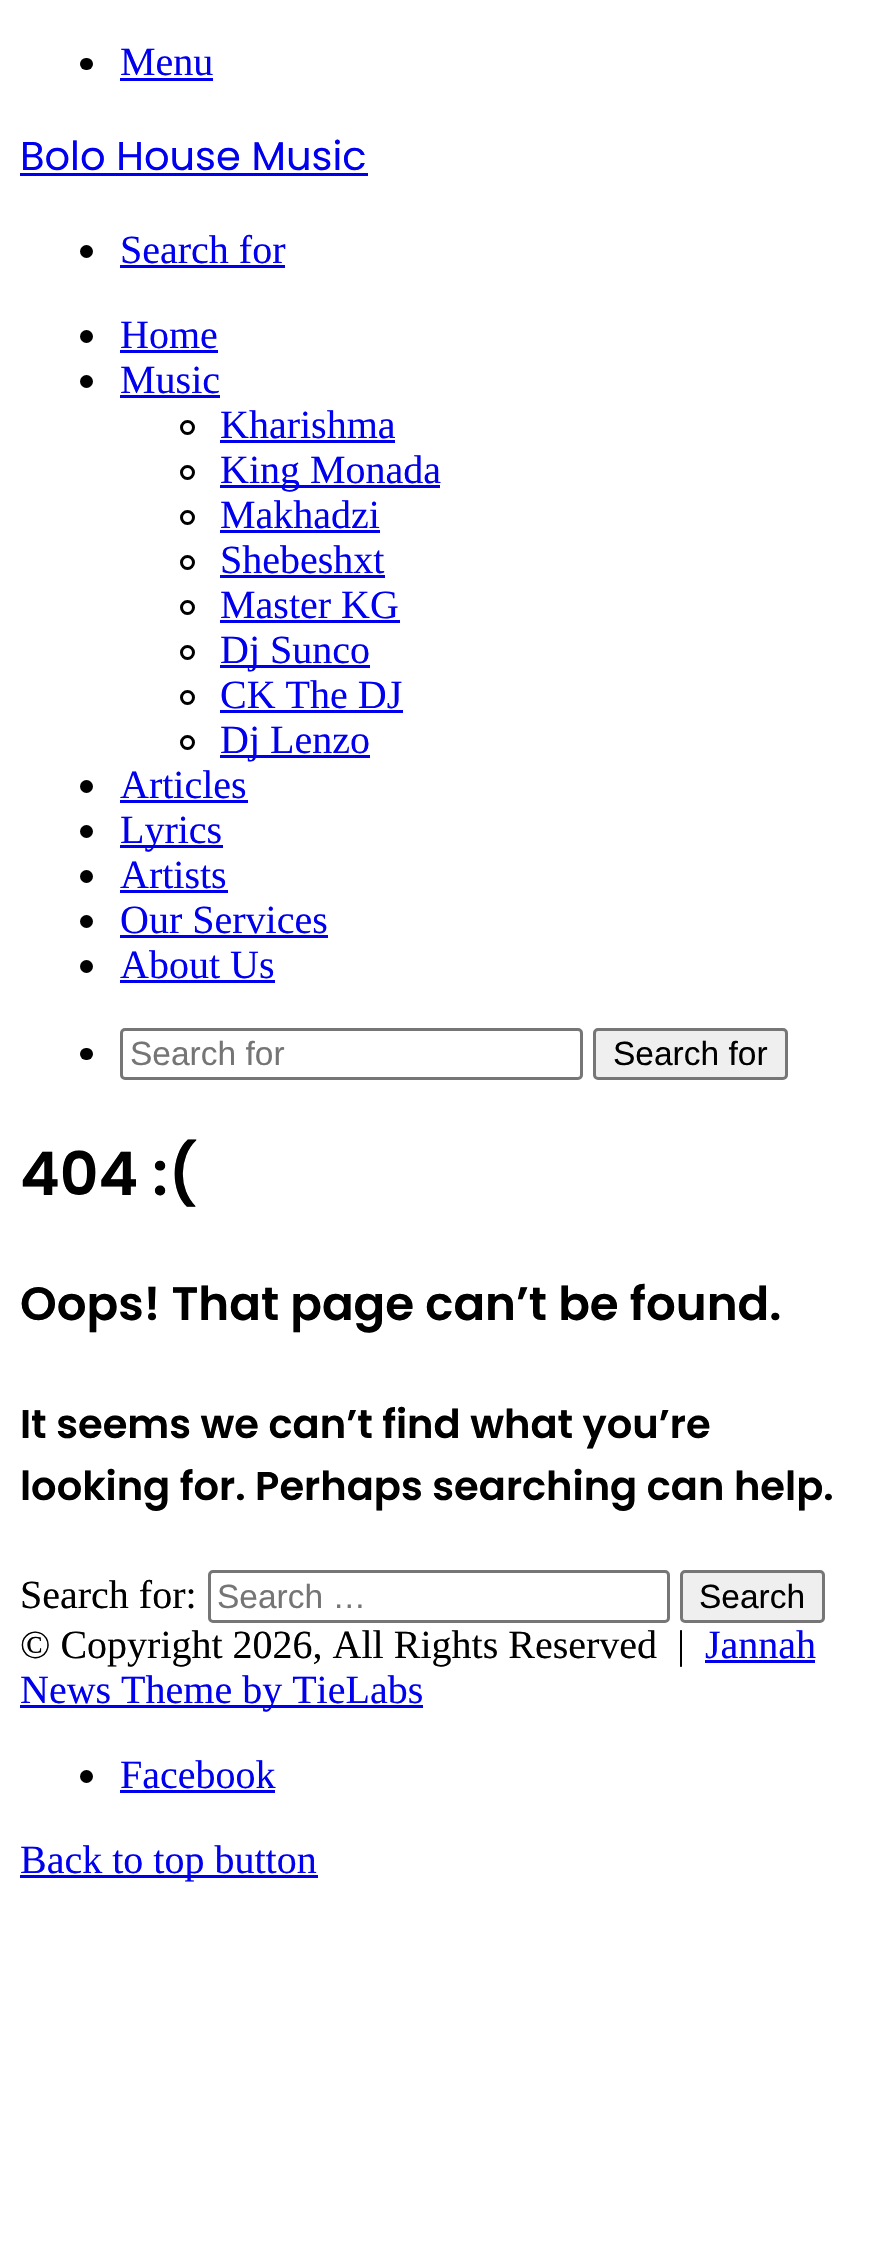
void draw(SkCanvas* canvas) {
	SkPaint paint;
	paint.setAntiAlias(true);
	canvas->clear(0xffffffff);
	paint.setColor(0xff000000);
	canvas->drawRoundRect(SkRect::MakeXYWH(80, 58, 13, 12), 6, 6, paint);
	SkFont f1(fontMgr->matchFamilyStyle("Liberation Serif", SkFontStyle::Normal()), 40);
	f1.setSubpixel(true);
	paint.setColor(0xff0000ee);
	canvas->drawString("Menu", 120, 75, f1, paint);
	canvas->drawRect(SkRect::MakeXYWH(120, 78, 93, 3), paint);
	SkFont f2(fontMgr->matchFamilyStyle("Poppins", SkFontStyle::Normal()), 40);
	f2.setSubpixel(true);
	canvas->drawString("Bolo House Music", 20, 170, f2, paint);
	canvas->drawRect(SkRect::MakeXYWH(20, 173, 348, 3), paint);
	paint.setColor(0xff000000);
	canvas->drawCircle(86.5, 251.5, 6.5, paint);
	paint.setColor(0xff0000ee);
	canvas->drawString("Search for", 120, 263, f1, paint);
	canvas->drawRect(SkRect::MakeXYWH(120, 265, 165, 3), paint);
	paint.setColor(0xff000000);
	canvas->drawCircle(86.5, 336.5, 6.5, paint);
	paint.setColor(0xff0000ee);
	canvas->drawString("Home", 120, 348, f1, paint);
	canvas->drawRect(SkRect::MakeXYWH(120, 350, 98, 3), paint);
	paint.setColor(0xff000000);
	canvas->drawCircle(86.5, 381.5, 6.5, paint);
	paint.setColor(0xff0000ee);
	canvas->drawString("Music", 120, 393, f1, paint);
	canvas->drawRect(SkRect::MakeXYWH(120, 395, 100, 3), paint);
	paint.setStroke(true);
	paint.setStrokeWidth(3);
	paint.setColor(0xff000000);
	canvas->drawCircle(187.5, 427.5, 6, paint);
	paint.setStroke(false);
	paint.setColor(0xff0000ee);
	canvas->drawString("Kharishma", 220, 438, f1, paint);
	canvas->drawRect(SkRect::MakeXYWH(220, 440, 175, 3), paint);
	paint.setStroke(true);
	paint.setColor(0xff000000);
	canvas->drawCircle(187.5, 472.5, 6, paint);
	paint.setStroke(false);
	paint.setColor(0xff0000ee);
	canvas->drawRect(SkRect::MakeXYWH(220, 485, 220, 3), paint);
	canvas->drawString("King Monada", 220, 483, f1, paint);
	paint.setStroke(true);
	paint.setColor(0xff000000);
	canvas->drawCircle(187.5, 517.5, 6, paint);
	paint.setStroke(false);
	paint.setColor(0xff0000ee);
	canvas->drawString("Makhadzi", 220, 528, f1, paint);
	canvas->drawRect(SkRect::MakeXYWH(220, 530, 160, 3), paint);
	paint.setStroke(true);
	paint.setColor(0xff000000);
	canvas->drawCircle(187.5, 562.5, 6, paint);
	paint.setStroke(false);
	paint.setColor(0xff0000ee);
	canvas->drawString("Shebeshxt", 220, 573, f1, paint);
	canvas->drawRect(SkRect::MakeXYWH(220, 575, 165, 3), paint);
	paint.setStroke(true);
	paint.setColor(0xff000000);
	canvas->drawCircle(187.5, 607.5, 6, paint);
	paint.setStroke(false);
	paint.setColor(0xff0000ee);
	canvas->drawString("Master KG", 220, 618, f1, paint);
	canvas->drawRect(SkRect::MakeXYWH(220, 620, 180, 3), paint);
	paint.setStroke(true);
	paint.setColor(0xff000000);
	canvas->drawCircle(187.5, 652.5, 6, paint);
	paint.setStroke(false);
	paint.setColor(0xff0000ee);
	canvas->drawRect(SkRect::MakeXYWH(220, 665, 150, 3), paint);
	canvas->drawString("Dj Sunco", 220, 663, f1, paint);
	paint.setStroke(true);
	paint.setColor(0xff000000);
	canvas->drawCircle(187.5, 697.5, 6, paint);
	paint.setStroke(false);
	paint.setColor(0xff0000ee);
	canvas->drawString("CK The DJ", 220, 708, f1, paint);
	canvas->drawRect(SkRect::MakeXYWH(220, 710, 183, 3), paint);
	paint.setStroke(true);
	paint.setColor(0xff000000);
	canvas->drawCircle(187.5, 742.5, 6, paint);
	paint.setStroke(false);
	paint.setColor(0xff0000ee);
	canvas->drawRect(SkRect::MakeXYWH(220, 755, 150, 3), paint);
	canvas->drawString("Dj Lenzo", 220, 753, f1, paint);
	paint.setColor(0xff000000);
	canvas->drawCircle(86.5, 786.5, 6.5, paint);
	paint.setColor(0xff0000ee);
	canvas->drawString("Articles", 120, 798, f1, paint);
	canvas->drawRect(SkRect::MakeXYWH(120, 800, 128, 3), paint);
	paint.setColor(0xff000000);
	canvas->drawCircle(86.5, 831.5, 6.5, paint);
	paint.setColor(0xff0000ee);
	canvas->drawRect(SkRect::MakeXYWH(120, 845, 103, 3), paint);
	canvas->drawString("Lyrics", 120, 843, f1, paint);
	paint.setColor(0xff000000);
	canvas->drawCircle(86.5, 876.5, 6.5, paint);
	paint.setColor(0xff0000ee);
	canvas->drawString("Artists", 120, 888, f1, paint);
	canvas->drawRect(SkRect::MakeXYWH(120, 890, 108, 3), paint);
	paint.setColor(0xff000000);
	canvas->drawCircle(86.5, 921.5, 6.5, paint);
	paint.setColor(0xff0000ee);
	canvas->drawString("Our Services", 120, 933, f1, paint);
	canvas->drawRect(SkRect::MakeXYWH(120, 935, 208, 3), paint);
	paint.setColor(0xff000000);
	canvas->drawCircle(86.5, 966.5, 6.5, paint);
	paint.setColor(0xff0000ee);
	canvas->drawString("About Us", 120, 978, f1, paint);
	canvas->drawRect(SkRect::MakeXYWH(120, 980, 155, 3), paint);
	paint.setColor(0xff000000);
	canvas->drawRoundRect(SkRect::MakeXYWH(80, 1048, 13, 12), 6, 6, paint);
	paint.setStroke(true);
	paint.setColor(0xff767676);
	canvas->drawRoundRect(SkRect::MakeXYWH(121.5, 1029.5, 460, 49), 3.5, 3.5, paint);
	SkFont f3(fontMgr->matchFamilyStyle("Liberation Sans", SkFontStyle::Normal()), 33.5);
	f3.setSubpixel(true);
	paint.setStroke(false);
	paint.setColor(0xff757575);
	canvas->drawString("Search for", 130, 1065, f3, paint);
	paint.setColor(0xffefefef);
	canvas->drawRoundRect(SkRect::MakeXYWH(594.5, 1029.5, 192, 49), 3.5, 3.5, paint);
	paint.setStroke(true);
	paint.setColor(0xff767676);
	canvas->drawRoundRect(SkRect::MakeXYWH(594.5, 1029.5, 192, 49), 3.5, 3.5, paint);
	paint.setStroke(false);
	paint.setColor(0xff000000);
	canvas->drawString("Search for", 613, 1065, f3, paint);
	SkFont f4(fontMgr->matchFamilyStyle("Poppins", SkFontStyle(600, SkFontStyle::kNormal_Width, SkFontStyle::kUpright_Slant)), 60);
	f4.setSubpixel(true);
	canvas->drawString("404 :(", 20, 1195, f4, paint);
	SkFont f5(fontMgr->matchFamilyStyle("Poppins", SkFontStyle(600, SkFontStyle::kNormal_Width, SkFontStyle::kUpright_Slant)), 46.75);
	f5.setSubpixel(true);
	canvas->drawString("Oops! That page can’t be found.", 20, 1320, f5, paint);
	SkFont f6(fontMgr->matchFamilyStyle("Poppins", SkFontStyle(600, SkFontStyle::kNormal_Width, SkFontStyle::kUpright_Slant)), 40);
	f6.setSubpixel(true);
	canvas->drawString("It seems we can’t find what you’re", 20, 1438, f6, paint);
	canvas->drawString("looking for. Perhaps searching can help.", 20, 1500, f6, paint);
	canvas->drawString("Search for:", 20, 1608, f1, paint);
	paint.setStroke(true);
	paint.setColor(0xff767676);
	canvas->drawRoundRect(SkRect::MakeXYWH(209.5, 1571.5, 459, 50), 3.5, 3.5, paint);
	paint.setStroke(false);
	paint.setColor(0xff757575);
	canvas->drawString("Search …", 217, 1608, f3, paint);
	paint.setColor(0xffefefef);
	canvas->drawRoundRect(SkRect::MakeXYWH(681.5, 1571.5, 142, 50), 3.5, 3.5, paint);
	paint.setStroke(true);
	paint.setColor(0xff767676);
	canvas->drawRoundRect(SkRect::MakeXYWH(681.5, 1571.5, 142, 50), 3.5, 3.5, paint);
	paint.setStroke(false);
	paint.setColor(0xff000000);
	canvas->drawString("Search", 699, 1608, f3, paint);
	canvas->drawString("© Copyright 2026, All Rights Reserved  |", 20, 1658, f1, paint);
	paint.setColor(0xff0000ee);
	canvas->drawString("Jannah", 705, 1658, f1, paint);
	canvas->drawRect(SkRect::MakeXYWH(705, 1660, 110, 3), paint);
	canvas->drawRect(SkRect::MakeXYWH(20, 1705, 403, 3), paint);
	canvas->drawString("News Theme by TieLabs", 20, 1703, f1, paint);
	paint.setColor(0xff000000);
	canvas->drawCircle(86.5, 1776.5, 6.5, paint);
	paint.setColor(0xff0000ee);
	canvas->drawString("Facebook", 120, 1788, f1, paint);
	canvas->drawRect(SkRect::MakeXYWH(120, 1790, 155, 3), paint);
	canvas->drawRect(SkRect::MakeXYWH(20, 1875, 298, 3), paint);
	canvas->drawString("Back to top button", 20, 1873, f1, paint);
}
